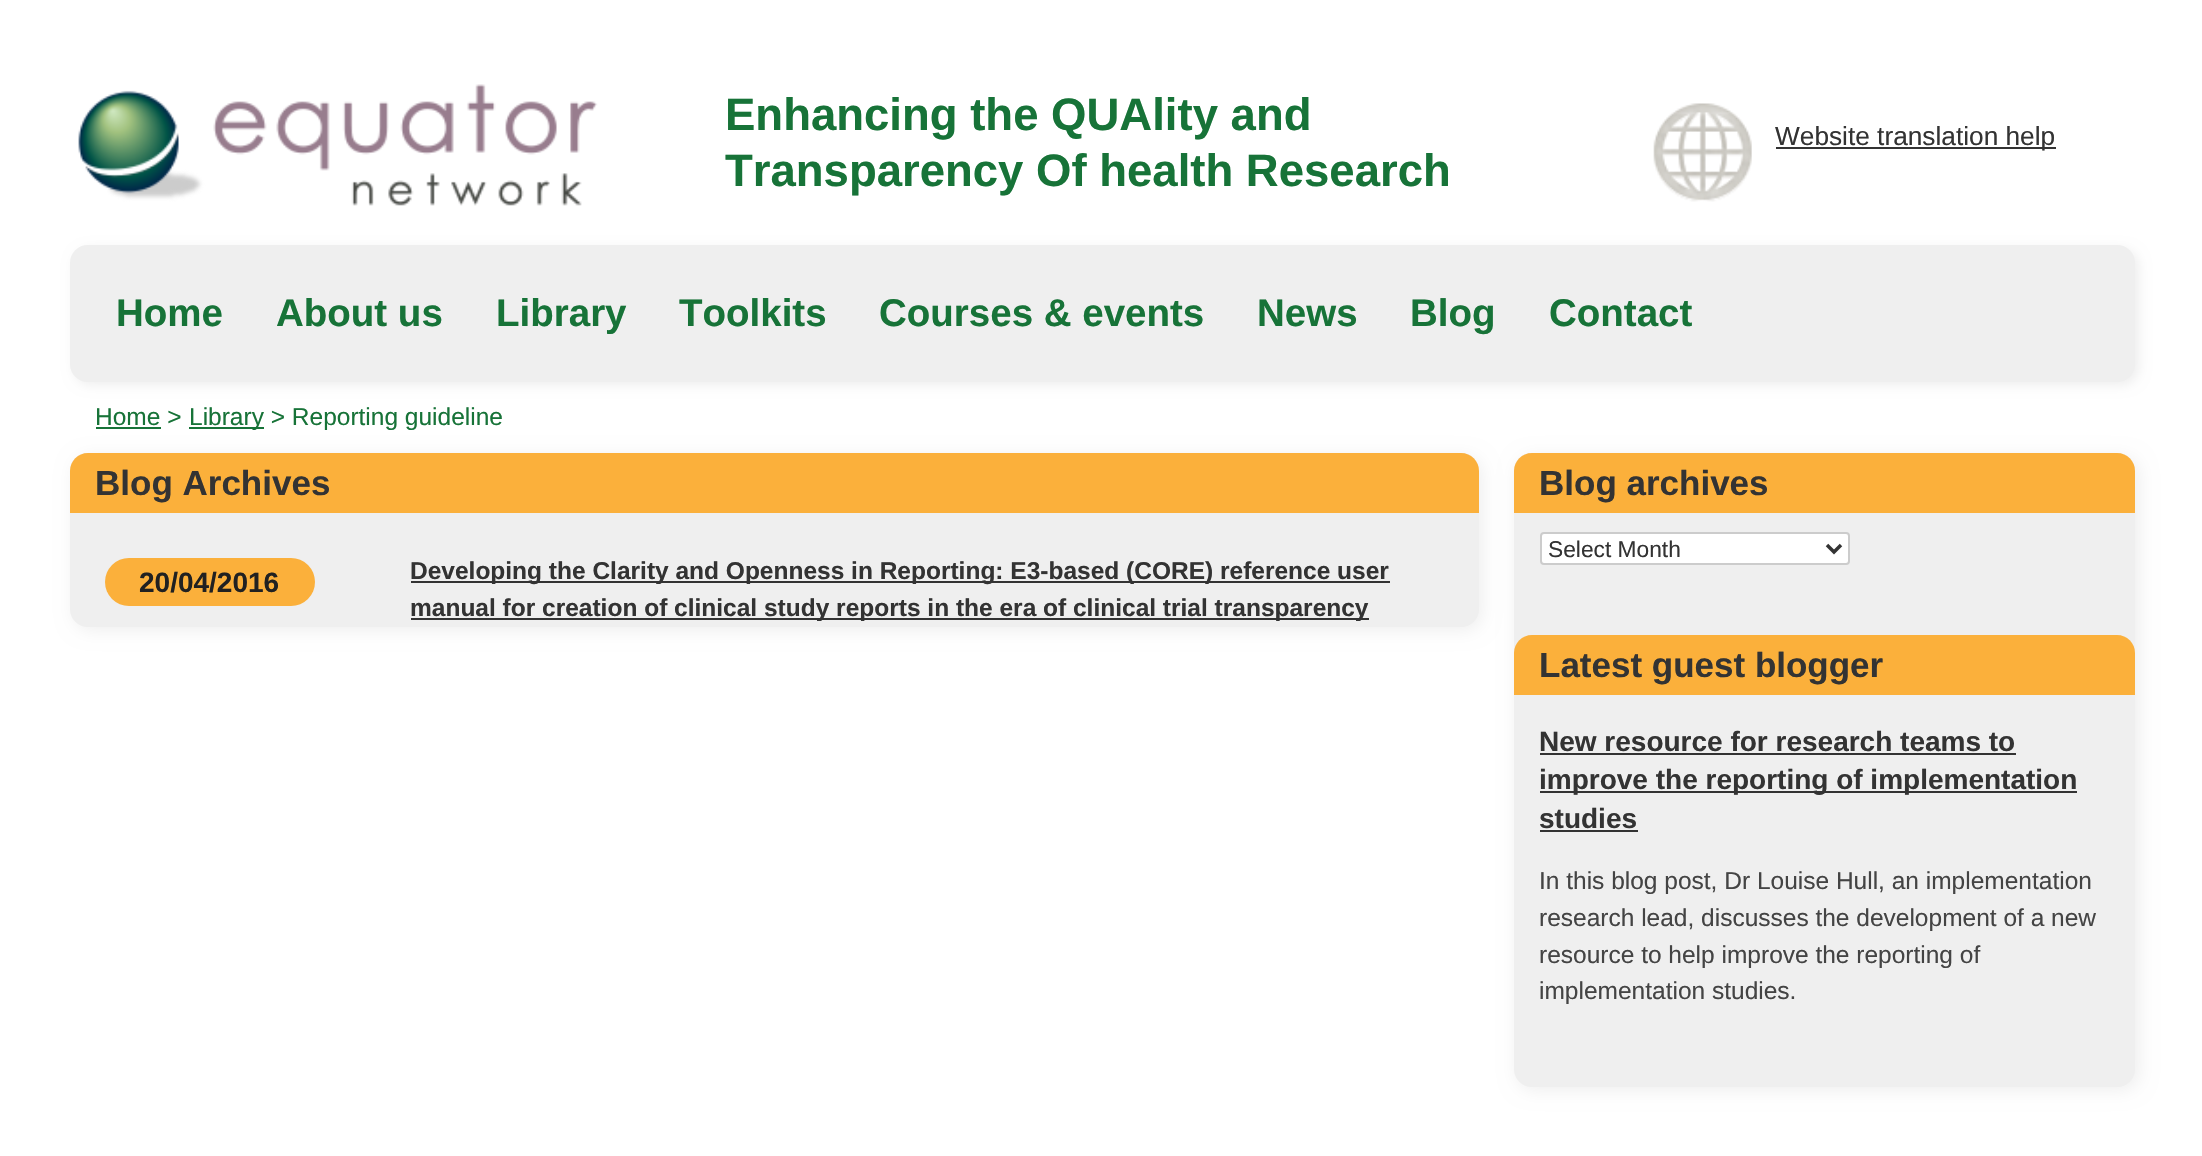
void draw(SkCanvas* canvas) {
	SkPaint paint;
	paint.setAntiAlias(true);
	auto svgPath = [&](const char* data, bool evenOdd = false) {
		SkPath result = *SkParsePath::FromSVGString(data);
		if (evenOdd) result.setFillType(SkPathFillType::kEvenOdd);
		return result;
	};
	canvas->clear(0xffffffff);
	canvas->drawImageRect(SkImages::DeferredFromEncodedData(SkData::MakeFromFileName("img1.png")), SkRect::MakeXYWH(78, 84, 520, 122), SkSamplingOptions());
	SkFont f1(fontMgr->matchFamilyStyle("Liberation Sans", SkFontStyle::Bold()), 45.5);
	f1.setSubpixel(true);
	paint.setColor(0xff177338);
	canvas->drawString("Enhancing the QUAlity and", 725, 130, f1, paint);
	canvas->drawString("Transparency Of health Research", 725, 186, f1, paint);
	canvas->drawImageRect(SkImages::DeferredFromEncodedData(SkData::MakeFromFileName("img2.png")), SkRect::MakeXYWH(1653, 103, 99, 99), SkSamplingOptions());
	paint.setColor(0xff333333);
	canvas->drawRect(SkRect::MakeXYWH(1776, 147, 280, 2), paint);
	SkFont f2(fontMgr->matchFamilyStyle("Liberation Sans", SkFontStyle::Normal()), 26.25);
	f2.setSubpixel(true);
	canvas->drawString("Website translation help", 1775, 145, f2, paint);
	paint.setColor(0xffeeeeee);
	paint.setMaskFilter(SkMaskFilter::MakeBlur(kNormal_SkBlurStyle, 6));
	canvas->drawRoundRect(SkRect::MakeXYWH(74, 249, 2065, 136), 18, 18, paint);
	paint.setMaskFilter(nullptr);
	paint.setColor(0xffefefef);
	canvas->drawRoundRect(SkRect::MakeXYWH(70, 245, 2065, 137), 18, 18, paint);
	SkFont f3(fontMgr->matchFamilyStyle("Liberation Sans", SkFontStyle::Bold()), 38.5);
	f3.setSubpixel(true);
	paint.setColor(0xff177338);
	canvas->drawString("Home", 116, 326, f3, paint);
	canvas->drawString("About us", 276, 326, f3, paint);
	canvas->drawString("Library", 496, 326, f3, paint);
	canvas->drawString("Toolkits", 679, 326, f3, paint);
	canvas->drawString("Courses & events", 879, 326, f3, paint);
	canvas->drawString("News", 1257, 326, f3, paint);
	canvas->drawString("Blog", 1410, 326, f3, paint);
	canvas->drawString("Contact", 1549, 326, f3, paint);
	SkFont f4(fontMgr->matchFamilyStyle("Liberation Sans", SkFontStyle::Normal()), 24.5);
	f4.setSubpixel(true);
	canvas->drawString("Home >", 95, 425, f4, paint);
	canvas->drawRect(SkRect::MakeXYWH(96, 427, 65, 2), paint);
	canvas->drawRect(SkRect::MakeXYWH(189, 427, 75, 2), paint);
	canvas->drawString("Library > Reporting guideline", 189, 425, f4, paint);
	paint.setColor(0xffeeeeee);
	paint.setMaskFilter(SkMaskFilter::MakeBlur(kNormal_SkBlurStyle, 9));
	canvas->drawRoundRect(SkRect::MakeXYWH(74, 457, 1408, 173), 18, 18, paint);
	paint.setMaskFilter(nullptr);
	paint.setColor(0xffefefef);
	canvas->drawRoundRect(SkRect::MakeXYWH(70, 453, 1409, 174), 18, 18, paint);
	paint.setColor(0xfffbb03b);
	canvas->drawPath(svgPath("M88 453H1461C1471 453 1479 461 1479 471V513H70V471C70 461 78 453 88 453Z"), paint);
	SkFont f5(fontMgr->matchFamilyStyle("Liberation Sans", SkFontStyle::Bold()), 35);
	f5.setSubpixel(true);
	paint.setColor(0xff333333);
	canvas->drawString("Blog Archives", 95, 495, f5, paint);
	paint.setColor(0xfffbb03b);
	canvas->drawRoundRect(SkRect::MakeXYWH(105, 558, 210, 48), 24, 24, paint);
	SkFont f6(fontMgr->matchFamilyStyle("Liberation Sans", SkFontStyle::Bold()), 28);
	f6.setSubpixel(true);
	paint.setColor(0xff212121);
	canvas->drawString("20/04/2016", 139, 592, f6, paint);
	paint.setColor(0xff333333);
	canvas->drawRect(SkRect::MakeXYWH(411, 581, 979, 2), paint);
	SkFont f7(fontMgr->matchFamilyStyle("Liberation Sans", SkFontStyle::Bold()), 24.5);
	f7.setSubpixel(true);
	canvas->drawString("Developing the Clarity and Openness in Reporting: E3-based (CORE) reference user", 410, 579, f7, paint);
	canvas->drawRect(SkRect::MakeXYWH(411, 618, 958, 2), paint);
	canvas->drawString("manual for creation of clinical study reports in the era of clinical trial transparency", 410, 616, f7, paint);
	paint.setColor(0xffeeeeee);
	paint.setMaskFilter(SkMaskFilter::MakeBlur(kNormal_SkBlurStyle, 9));
	canvas->drawRoundRect(SkRect::MakeXYWH(1517, 457, 622, 633), 18, 18, paint);
	paint.setMaskFilter(nullptr);
	paint.setColor(0xffefefef);
	canvas->drawRoundRect(SkRect::MakeXYWH(1514, 453, 621, 634), 18, 18, paint);
	canvas->drawRoundRect(SkRect::MakeXYWH(1514, 453, 621, 147), 18, 18, paint);
	paint.setColor(0xfffbb03b);
	canvas->drawPath(svgPath("M1532 453H2117C2127 453 2135 461 2135 471V513H1514V471C1514 461 1522 453 1532 453Z"), paint);
	paint.setColor(0xff333333);
	canvas->drawString("Blog archives", 1539, 495, f5, paint);
	paint.setColor(0xffffffff);
	canvas->drawRoundRect(SkRect::MakeXYWH(1541, 533, 308, 31), 3, 3, paint);
	paint.setStroke(true);
	paint.setStrokeWidth(2);
	paint.setColor(0xffcccccc);
	canvas->drawRoundRect(SkRect::MakeXYWH(1541, 533, 308, 31), 3, 3, paint);
	paint.setStrokeWidth(3.5);
	paint.setColor(0xff333333);
	canvas->drawPath(svgPath("M1827 545L1834 552L1841 545"), paint);
	SkFont f8(fontMgr->matchFamilyStyle("Liberation Sans", SkFontStyle::Normal()), 22.75);
	f8.setSubpixel(true);
	paint.setStroke(false);
	canvas->drawString("Select Month", 1548, 557, f8, paint);
	paint.setColor(0xfffbb03b);
	canvas->drawPath(svgPath("M1532 635H2117C2127 635 2135 643 2135 653V695H1514V653C1514 643 1522 635 1532 635Z"), paint);
	paint.setColor(0xff333333);
	canvas->drawString("Latest guest blogger", 1539, 677, f5, paint);
	canvas->drawString("New resource for research teams to", 1539, 751, f6, paint);
	canvas->drawRect(SkRect::MakeXYWH(1540, 753, 476, 2), paint);
	canvas->drawRect(SkRect::MakeXYWH(1540, 791, 537, 2), paint);
	canvas->drawString("improve the reporting of implementation", 1539, 789, f6, paint);
	canvas->drawString("studies", 1539, 828, f6, paint);
	canvas->drawRect(SkRect::MakeXYWH(1540, 830, 98, 2), paint);
	paint.setColor(0xff444444);
	canvas->drawString("In this blog post, Dr Louise Hull, an implementation", 1539, 889, f4, paint);
	canvas->drawString("research lead, discusses the development of a new", 1539, 926, f4, paint);
	canvas->drawString("resource to help improve the reporting of", 1539, 963, f4, paint);
	canvas->drawString("implementation studies.", 1539, 999, f4, paint);
}
